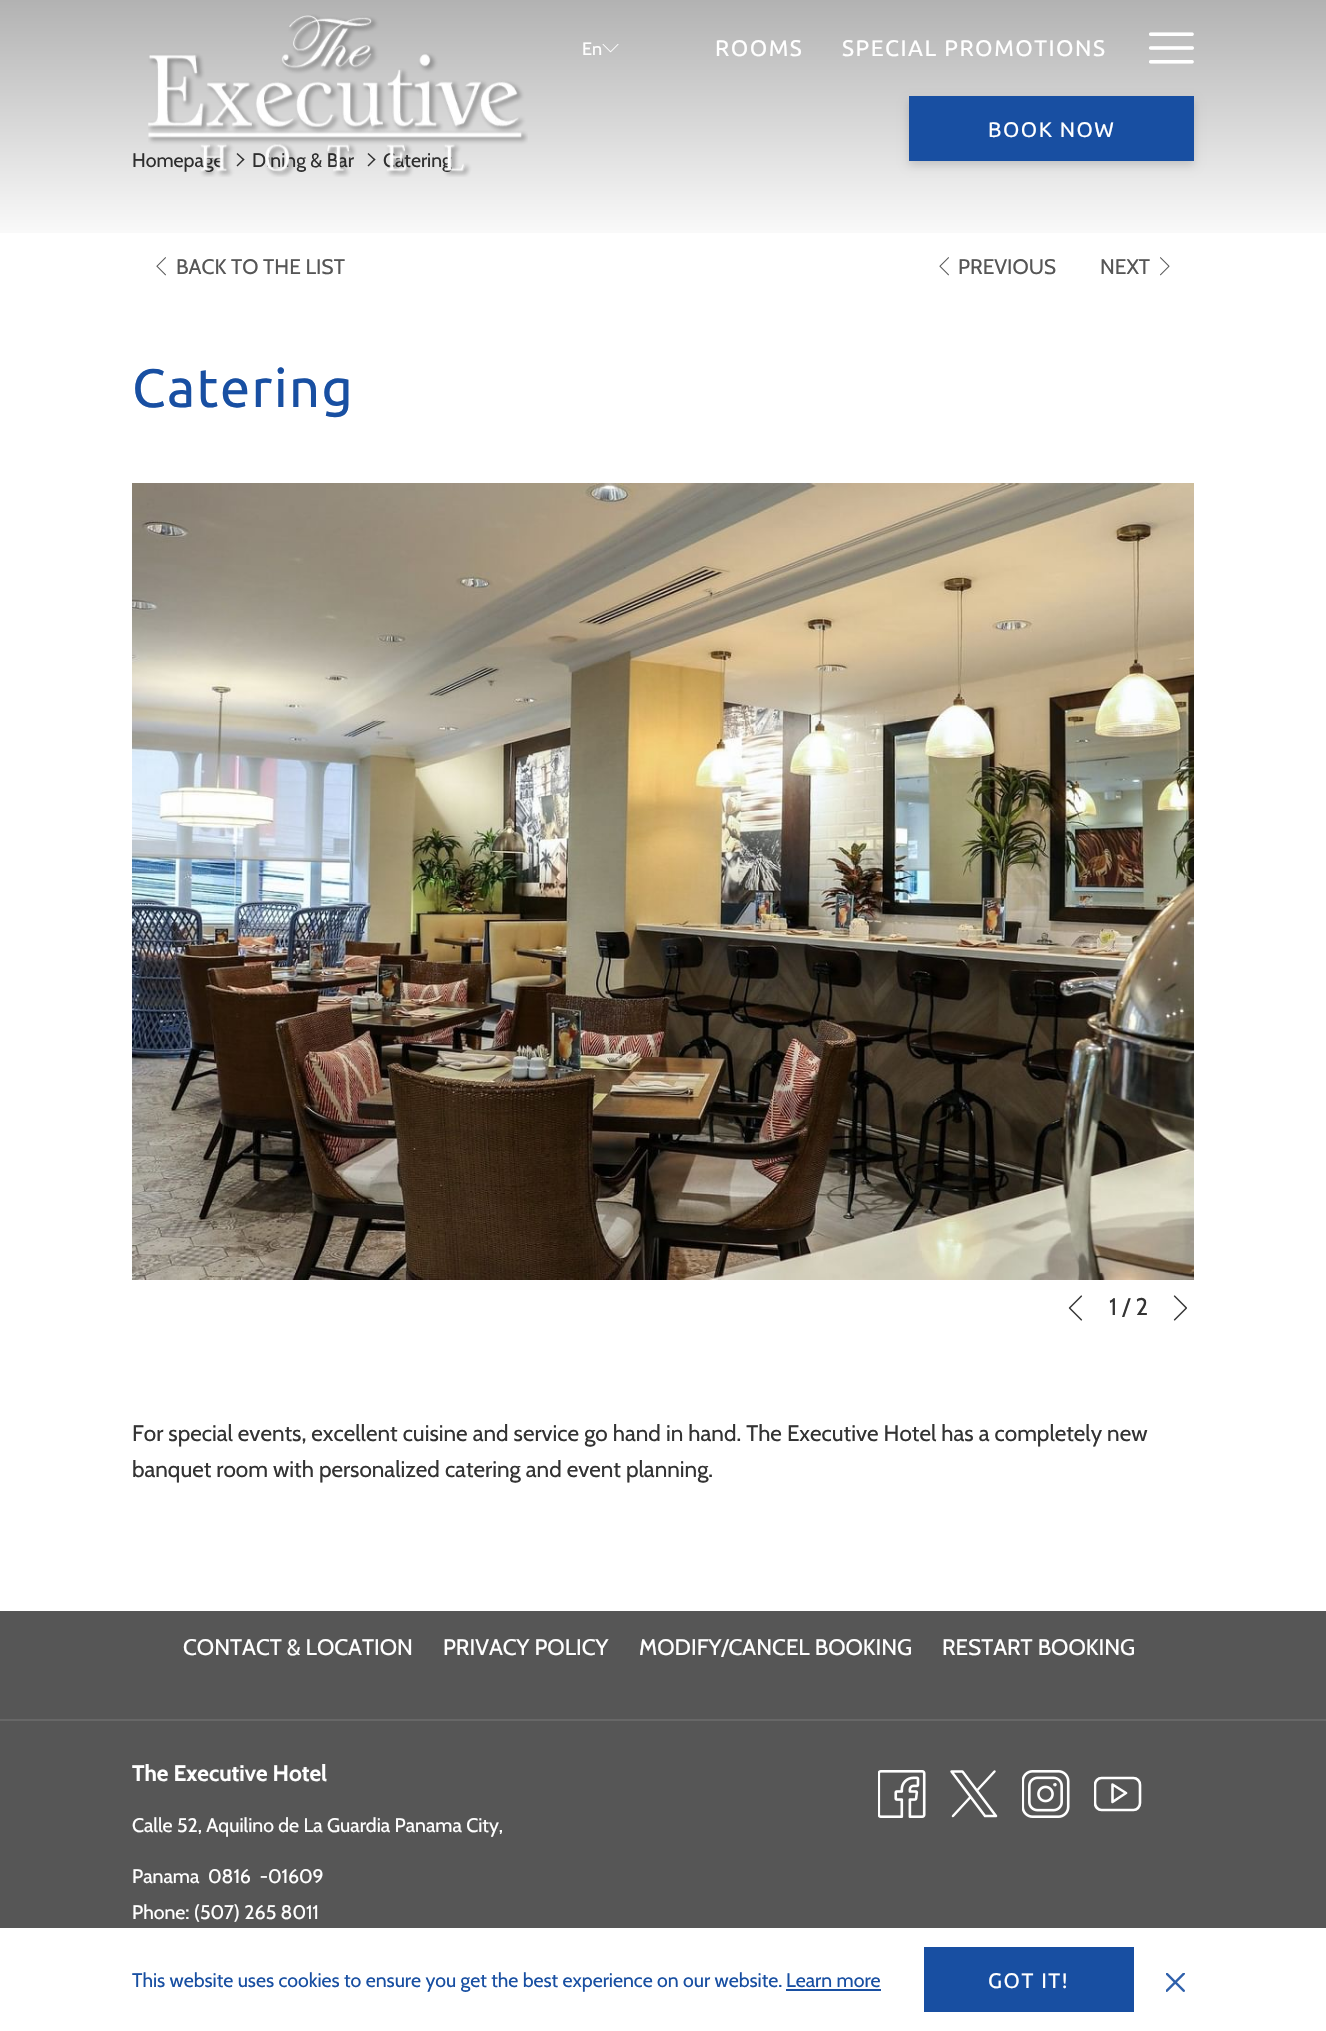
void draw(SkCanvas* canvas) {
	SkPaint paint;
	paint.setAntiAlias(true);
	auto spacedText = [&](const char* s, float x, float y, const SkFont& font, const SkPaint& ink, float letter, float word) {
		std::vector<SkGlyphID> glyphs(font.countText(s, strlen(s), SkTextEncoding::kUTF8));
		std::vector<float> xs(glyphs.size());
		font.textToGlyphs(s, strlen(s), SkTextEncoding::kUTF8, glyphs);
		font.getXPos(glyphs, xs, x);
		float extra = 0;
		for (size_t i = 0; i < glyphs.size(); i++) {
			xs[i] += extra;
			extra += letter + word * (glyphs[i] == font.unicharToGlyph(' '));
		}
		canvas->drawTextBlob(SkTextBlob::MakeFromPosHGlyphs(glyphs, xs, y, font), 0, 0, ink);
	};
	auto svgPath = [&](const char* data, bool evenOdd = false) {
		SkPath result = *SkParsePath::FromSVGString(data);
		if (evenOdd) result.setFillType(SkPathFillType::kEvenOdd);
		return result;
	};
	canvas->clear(0xffffffff);
	SkFont f1(fontMgr->matchFamilyStyle("Cabin", SkFontStyle::Normal()), 19.5);
	f1.setSubpixel(true);
	paint.setColor(0xff333333);
	canvas->drawString("Homepage", 132, 167, f1, paint);
	canvas->drawPath(svgPath("M236.5 154L237.5 153L244.5 159.5L243.5 160.5Z"), paint);
	canvas->drawPath(svgPath("M236.5 165.5L243.5 158.5L244.5 159.5L237.5 166.5Z"), paint);
	canvas->drawString("Dining & Bar", 252, 167, f1, paint);
	canvas->drawPath(svgPath("M367.5 154L368.5 153L375.5 159.5L374.5 160.5Z"), paint);
	canvas->drawPath(svgPath("M367.5 165.5L374.5 158.5L375.5 159.5L368.5 166.5Z"), paint);
	canvas->drawString("Catering", 383, 167, f1, paint);
	{
		const SkColor colors[] = {0x4d000000, 0x00000000};
		const float stops[] = {0, 1};
		const SkPoint ends[] = {{663, 0}, {663, 251}};
		paint.setShader(SkGradientShader::MakeLinear(ends, colors, stops, 2, SkTileMode::kClamp));
		paint.setAlpha(255);
	}
	canvas->drawRect(SkRect::MakeXYWH(0, 0, 1326, 233), paint);
	canvas->drawImageRect(SkImages::DeferredFromEncodedData(SkData::MakeFromFileName("img1.png")), SkRect::MakeXYWH(148, 14, 380, 163), SkSamplingOptions());
	SkFont f2(fontMgr->matchFamilyStyle("Cabin", SkFontStyle::Normal()), 18);
	f2.setSubpixel(true);
	paint.setShader(nullptr);
	paint.setColor(0xffffffff);
	canvas->drawString("En", 582, 55, f2, paint);
	canvas->drawImageRect(SkImages::DeferredFromEncodedData(SkData::MakeFromFileName("img2.png")), SkRect::MakeXYWH(602, 44, 17, 9), SkSamplingOptions());
	SkFont f3(fontMgr->matchFamilyStyle("Ubuntu", SkFontStyle::Normal()), 22.5);
	f3.setSubpixel(true);
	spacedText("ROOMS", 715, 56, f3, paint, 1.5, 0);
	spacedText("SPECIAL PROMOTIONS", 842, 56, f3, paint, 1.5, 0);
	canvas->drawImageRect(SkImages::DeferredFromEncodedData(SkData::MakeFromFileName("img3.png")), SkRect::MakeXYWH(1149, 32, 45, 32), SkSamplingOptions());
	paint.setColor(0x26000000);
	paint.setMaskFilter(SkMaskFilter::MakeBlur(kNormal_SkBlurStyle, 4.5));
	canvas->drawRect(SkRect::MakeXYWH(909, 101, 285, 64), paint);
	paint.setMaskFilter(nullptr);
	paint.setColor(0xff184fa2);
	canvas->drawRect(SkRect::MakeXYWH(909, 96, 285, 65), paint);
	SkFont f4(fontMgr->matchFamilyStyle("Ubuntu", SkFontStyle::Normal()), 21);
	f4.setSubpixel(true);
	paint.setColor(0xffffffff);
	spacedText("BOOK NOW", 988, 137, f4, paint, 1.5, 0);
	canvas->drawImageRect(SkImages::DeferredFromEncodedData(SkData::MakeFromFileName("img4.png")), SkRect::MakeXYWH(156, 257, 10, 19), SkSamplingOptions());
	SkFont f5(fontMgr->matchFamilyStyle("Cabin", SkFontStyle::Normal()), 21);
	f5.setSubpixel(true);
	paint.setColor(0xff565656);
	canvas->drawString("BACK TO THE LIST", 176, 274, f5, paint);
	canvas->drawImageRect(SkImages::DeferredFromEncodedData(SkData::MakeFromFileName("img4.png")), SkRect::MakeXYWH(939, 257, 10, 19), SkSamplingOptions());
	canvas->drawString("PREVIOUS", 958, 274, f5, paint);
	canvas->drawString("NEXT", 1100, 274, f5, paint);
	canvas->drawImageRect(SkImages::DeferredFromEncodedData(SkData::MakeFromFileName("img5.png")), SkRect::MakeXYWH(1160, 257, 10, 19), SkSamplingOptions());
	SkFont f6(fontMgr->matchFamilyStyle("Ubuntu", SkFontStyle::Normal()), 54);
	f6.setSubpixel(true);
	paint.setColor(0xff184fa2);
	spacedText("Catering", 132, 407, f6, paint, 1.5, 0);
	canvas->drawImageRect(SkImages::DeferredFromEncodedData(SkData::MakeFromFileName("img6.png")), SkRect::MakeXYWH(132, 483, 1062, 797), SkSamplingOptions());
	canvas->drawImageRect(SkImages::DeferredFromEncodedData(SkData::MakeFromFileName("img7.png")), SkRect::MakeXYWH(1068, 1295, 15, 26), SkSamplingOptions());
	SkFont f7(fontMgr->matchFamilyStyle("Cabin", SkFontStyle::Normal()), 24);
	f7.setSubpixel(true);
	paint.setColor(0xff333333);
	canvas->drawString("1 / 2", 1109, 1315, f7, paint);
	canvas->drawImageRect(SkImages::DeferredFromEncodedData(SkData::MakeFromFileName("img8.png")), SkRect::MakeXYWH(1173, 1295, 14, 26), SkSamplingOptions());
	SkFont f8(fontMgr->matchFamilyStyle("Cabin", SkFontStyle::Normal()), 22.5);
	f8.setSubpixel(true);
	canvas->drawString("For special events, excellent cuisine and service go hand in hand. The Executive Hotel has a completely new", 132, 1441, f8, paint);
	canvas->drawString("banquet room with personalized catering and event planning.", 132, 1477, f8, paint);
	paint.setColor(0xff565656);
	canvas->drawRect(SkRect::MakeXYWH(0, 1611, 1326, 317), paint);
	paint.setColor(0xffffffff);
	canvas->drawString("CONTACT & LOCATION", 183, 1655, f8, paint);
	canvas->drawString("PRIVACY POLICY", 443, 1655, f8, paint);
	canvas->drawString("MODIFY/CANCEL BOOKING", 639, 1655, f8, paint);
	canvas->drawString("RESTART BOOKING", 942, 1655, f8, paint);
	paint.setColor(0xff676767);
	canvas->drawRect(SkRect::MakeXYWH(0, 1719, 1326, 2), paint);
	SkFont f9(fontMgr->matchFamilyStyle("Cabin", SkFontStyle::Bold()), 22.5);
	f9.setSubpixel(true);
	paint.setColor(0xffffffff);
	canvas->drawString("The Executive Hotel", 132, 1781, f9, paint);
	canvas->drawString("Calle 52, Aquilino de La Guardia Panama City,", 132, 1832, f1, paint);
	canvas->drawString("Panama  0816  -01609", 132, 1883, f1, paint);
	canvas->drawString("Phone: (507) 265 8011", 132, 1919, f1, paint);
	canvas->drawImageRect(SkImages::DeferredFromEncodedData(SkData::MakeFromFileName("img9.png")), SkRect::MakeXYWH(878, 1770, 48, 48), SkSamplingOptions());
	paint.setStroke(true);
	paint.setStrokeWidth(2.5);
	paint.setStrokeCap(SkPaint::kRound_Cap);
	paint.setStrokeJoin(SkPaint::kRound_Join);
	canvas->drawPath(svgPath("M985 1816L951.5 1771.5H962.5L996 1816ZM994.5 1771.5L977 1790.5M953 1816L970.5 1797"), paint);
	canvas->drawImageRect(SkImages::DeferredFromEncodedData(SkData::MakeFromFileName("img10.png")), SkRect::MakeXYWH(1022, 1770, 48, 48), SkSamplingOptions());
	canvas->save();
	canvas->clipRect(SkRect::MakeXYWH(1094, 1770, 48, 48));
	paint.setStrokeWidth(2.6);
	canvas->drawPath(svgPath("M1140 1785C1140 1781 1137 1778 1133.5 1778H1101.5C1098 1778 1095 1781 1095 1785V1803C1095 1807 1098 1810 1101.5 1810H1133.5C1137 1810 1140 1807 1140 1803ZM1112.5 1802V1784.5L1126 1793Z"), paint);
	canvas->restore();
	paint.setStroke(false);
	paint.setColor(0xff184fa2);
	canvas->drawString("This website uses cookies to ensure you get the best experience on our website.", 132, 1987, f1, paint);
	canvas->drawString("Learn more", 786, 1987, f1, paint);
	canvas->drawRect(SkRect::MakeXYWH(786, 1989, 95, 2), paint);
	canvas->drawRect(SkRect::MakeXYWH(924, 1947, 210, 65), paint);
	paint.setColor(0xffffffff);
	spacedText("GOT IT!", 988, 1988, f4, paint, 1.5, 0);
	canvas->drawImageRect(SkImages::DeferredFromEncodedData(SkData::MakeFromFileName("img11.png")), SkRect::MakeXYWH(1166, 1973, 19, 19), SkSamplingOptions());
}
